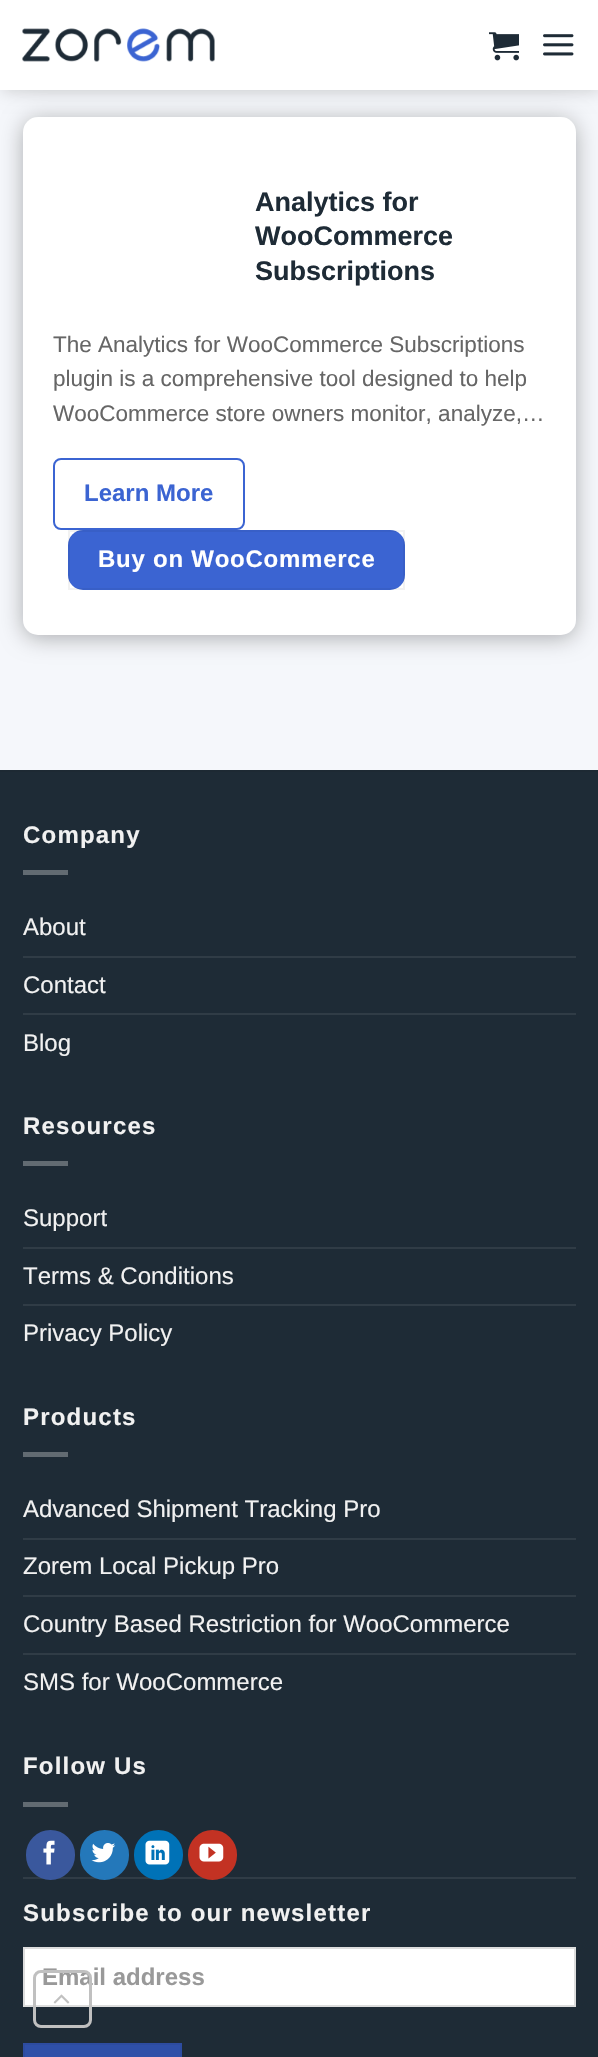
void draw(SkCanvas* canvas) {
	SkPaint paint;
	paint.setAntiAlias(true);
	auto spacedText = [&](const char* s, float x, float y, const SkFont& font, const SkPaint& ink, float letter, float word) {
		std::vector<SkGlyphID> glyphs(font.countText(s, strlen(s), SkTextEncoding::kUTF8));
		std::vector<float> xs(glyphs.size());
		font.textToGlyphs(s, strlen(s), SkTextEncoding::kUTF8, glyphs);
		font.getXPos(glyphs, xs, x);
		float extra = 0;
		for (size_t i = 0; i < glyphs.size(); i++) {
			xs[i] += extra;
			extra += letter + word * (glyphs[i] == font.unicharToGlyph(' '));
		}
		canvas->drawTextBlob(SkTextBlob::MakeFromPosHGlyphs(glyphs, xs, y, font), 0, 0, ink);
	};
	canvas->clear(0xfff5f7fb);
	paint.setColor(0x26000000);
	paint.setMaskFilter(SkMaskFilter::MakeBlur(kNormal_SkBlurStyle, 7.5));
	canvas->drawRect(SkRect::MakeXYWH(2, 2, 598, 90), paint);
	paint.setMaskFilter(nullptr);
	paint.setColor(0x4d000000);
	paint.setMaskFilter(SkMaskFilter::MakeBlur(kNormal_SkBlurStyle, 11));
	canvas->drawRoundRect(SkRect::MakeXYWH(23, -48, 553, 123), 15, 15, paint);
	paint.setMaskFilter(nullptr);
	paint.setMaskFilter(SkMaskFilter::MakeBlur(kNormal_SkBlurStyle, 11));
	canvas->drawRoundRect(SkRect::MakeXYWH(23, 120, 553, 518), 15, 15, paint);
	paint.setMaskFilter(nullptr);
	paint.setColor(0xffffffff);
	canvas->drawRect(SkRect::MakeXYWH(0, 0, 598, 90), paint);
	canvas->drawImageRect(SkImages::DeferredFromEncodedData(SkData::MakeFromFileName("img1.png")), SkRect::MakeXYWH(22, 28, 193, 34), SkSamplingOptions());
	canvas->drawImageRect(SkImages::DeferredFromEncodedData(SkData::MakeFromFileName("img2.png")), SkRect::MakeXYWH(489, 32, 30, 29), SkSamplingOptions());
	canvas->drawImageRect(SkImages::DeferredFromEncodedData(SkData::MakeFromFileName("img3.png")), SkRect::MakeXYWH(543, 34, 31, 22), SkSamplingOptions());
	canvas->drawRoundRect(SkRect::MakeXYWH(23, 117, 553, 518), 15, 15, paint);
	SkFont f1(fontMgr->matchFamilyStyle("Liberation Sans", SkFontStyle::Bold()), 27);
	f1.setSubpixel(true);
	paint.setColor(0xff1e2b36);
	canvas->drawString("Analytics for", 255, 211, f1, paint);
	canvas->drawString("WooCommerce", 255, 245, f1, paint);
	canvas->drawString("Subscriptions", 255, 280, f1, paint);
	SkFont f2(fontMgr->matchFamilyStyle("Liberation Sans", SkFontStyle::Normal()), 22.5);
	f2.setSubpixel(true);
	paint.setColor(0xff666666);
	canvas->drawString("The Analytics for WooCommerce Subscriptions", 53, 352, f2, paint);
	canvas->drawString("plugin is a comprehensive tool designed to help", 53, 386, f2, paint);
	canvas->drawString("WooCommerce store owners monitor, analyze,…", 53, 421, f2, paint);
	paint.setStroke(true);
	paint.setStrokeWidth(2);
	paint.setColor(0xff3b64d2);
	canvas->drawRoundRect(SkRect::MakeXYWH(54, 459, 190, 70), 7, 7, paint);
	SkFont f3(fontMgr->matchFamilyStyle("Liberation Sans", SkFontStyle::Bold()), 24);
	f3.setSubpixel(true);
	paint.setStroke(false);
	canvas->drawString("Learn More", 84, 501, f3, paint);
	canvas->drawRoundRect(SkRect::MakeXYWH(68, 530, 337, 60), 15, 15, paint);
	paint.setStroke(true);
	paint.setColor(0x0d000000);
	canvas->drawRect(SkRect::MakeXYWH(69, 531, 335, 58), paint);
	paint.setStroke(false);
	paint.setColor(0xffffffff);
	spacedText("Buy on WooCommerce", 98, 567, f3, paint, 0.75, 0);
	paint.setColor(0xff1e2b36);
	canvas->drawRect(SkRect::MakeXYWH(0, 772, 598, 1285), paint);
	paint.setColor(0xff1d2933);
	canvas->drawRect(SkRect::MakeXYWH(0, 770, 598, 2), paint);
	paint.setColor(0xfff1f1f1);
	spacedText("Company", 23, 843, f3, paint, 1.2, 0);
	paint.setColor(0xff626b72);
	canvas->drawRect(SkRect::MakeXYWH(23, 870, 45, 5), paint);
	SkFont f4(fontMgr->matchFamilyStyle("Liberation Sans", SkFontStyle::Normal()), 24);
	f4.setSubpixel(true);
	paint.setColor(0xfff1f1f1);
	canvas->drawString("About", 23, 935, f4, paint);
	paint.setColor(0xff303c46);
	canvas->drawRect(SkRect::MakeXYWH(23, 956, 553, 2), paint);
	paint.setColor(0xfff1f1f1);
	canvas->drawString("Contact", 23, 993, f4, paint);
	paint.setColor(0xff303c46);
	canvas->drawRect(SkRect::MakeXYWH(23, 1013, 553, 2), paint);
	paint.setColor(0xfff1f1f1);
	canvas->drawString("Blog", 23, 1051, f4, paint);
	spacedText("Resources", 23, 1134, f3, paint, 1.2, 0);
	paint.setColor(0xff626b72);
	canvas->drawRect(SkRect::MakeXYWH(23, 1161, 45, 5), paint);
	paint.setColor(0xfff1f1f1);
	canvas->drawString("Support", 23, 1226, f4, paint);
	paint.setColor(0xff303c46);
	canvas->drawRect(SkRect::MakeXYWH(23, 1247, 553, 2), paint);
	paint.setColor(0xfff1f1f1);
	canvas->drawString("Terms & Conditions", 23, 1284, f4, paint);
	paint.setColor(0xff303c46);
	canvas->drawRect(SkRect::MakeXYWH(23, 1304, 553, 2), paint);
	paint.setColor(0xfff1f1f1);
	canvas->drawString("Privacy Policy", 23, 1341, f4, paint);
	spacedText("Products", 23, 1425, f3, paint, 1.2, 0);
	paint.setColor(0xff626b72);
	canvas->drawRect(SkRect::MakeXYWH(23, 1452, 45, 5), paint);
	paint.setColor(0xfff1f1f1);
	canvas->drawString("Advanced Shipment Tracking Pro", 23, 1517, f4, paint);
	paint.setColor(0xff303c46);
	canvas->drawRect(SkRect::MakeXYWH(23, 1538, 553, 2), paint);
	paint.setColor(0xfff1f1f1);
	canvas->drawString("Zorem Local Pickup Pro", 23, 1574, f4, paint);
	paint.setColor(0xff303c46);
	canvas->drawRect(SkRect::MakeXYWH(23, 1595, 553, 2), paint);
	paint.setColor(0xfff1f1f1);
	canvas->drawString("Country Based Restriction for WooCommerce", 23, 1632, f4, paint);
	paint.setColor(0xff303c46);
	canvas->drawRect(SkRect::MakeXYWH(23, 1653, 553, 2), paint);
	paint.setColor(0xfff1f1f1);
	canvas->drawString("SMS for WooCommerce", 23, 1690, f4, paint);
	spacedText("Follow Us", 23, 1774, f3, paint, 1.2, 0);
	paint.setColor(0xff626b72);
	canvas->drawRect(SkRect::MakeXYWH(23, 1802, 45, 5), paint);
	paint.setColor(0xff303c46);
	canvas->drawRect(SkRect::MakeXYWH(23, 1877, 553, 2), paint);
	paint.setColor(0xff3a589d);
	canvas->drawRoundRect(SkRect::MakeXYWH(27, 1831, 47, 48), 23.5, 23.5, paint);
	paint.setStroke(true);
	canvas->drawRoundRect(SkRect::MakeXYWH(27, 1831, 47, 48), 23.5, 23.5, paint);
	canvas->drawImageRect(SkImages::DeferredFromEncodedData(SkData::MakeFromFileName("img4.png")), SkRect::MakeXYWH(43, 1840, 12, 25), SkSamplingOptions());
	paint.setStroke(false);
	paint.setColor(0xff2478ba);
	canvas->drawRoundRect(SkRect::MakeXYWH(81, 1831, 47, 48), 23.5, 23.5, paint);
	paint.setStroke(true);
	canvas->drawRoundRect(SkRect::MakeXYWH(81, 1831, 47, 48), 23.5, 23.5, paint);
	canvas->drawImageRect(SkImages::DeferredFromEncodedData(SkData::MakeFromFileName("img5.png")), SkRect::MakeXYWH(91, 1843, 25, 20), SkSamplingOptions());
	paint.setStroke(false);
	paint.setColor(0xff0072b7);
	canvas->drawRoundRect(SkRect::MakeXYWH(135, 1831, 47, 48), 23.5, 23.5, paint);
	paint.setStroke(true);
	canvas->drawRoundRect(SkRect::MakeXYWH(135, 1831, 47, 48), 23.5, 23.5, paint);
	canvas->drawImageRect(SkImages::DeferredFromEncodedData(SkData::MakeFromFileName("img6.png")), SkRect::MakeXYWH(145, 1840, 25, 25), SkSamplingOptions());
	paint.setStroke(false);
	paint.setColor(0xffc33223);
	canvas->drawRoundRect(SkRect::MakeXYWH(189, 1831, 47, 48), 23.5, 23.5, paint);
	paint.setStroke(true);
	canvas->drawRoundRect(SkRect::MakeXYWH(189, 1831, 47, 48), 23.5, 23.5, paint);
	canvas->drawImageRect(SkImages::DeferredFromEncodedData(SkData::MakeFromFileName("img7.png")), SkRect::MakeXYWH(199, 1843, 25, 19), SkSamplingOptions());
	paint.setStroke(false);
	paint.setColor(0xfff1f1f1);
	spacedText("Subscribe to our newsletter", 23, 1921, f3, paint, 1.2, 0);
	paint.setColor(0xffffffff);
	canvas->drawRect(SkRect::MakeXYWH(24, 1948, 551, 58), paint);
	paint.setStroke(true);
	paint.setColor(0xffdddddd);
	canvas->drawRect(SkRect::MakeXYWH(24, 1948, 551, 58), paint);
	paint.setStroke(false);
	paint.setColor(0xff999999);
	canvas->drawString("Email address", 42, 1985, f3, paint);
	paint.setColor(0xff2f50a8);
	canvas->drawRect(SkRect::MakeXYWH(24, 2044, 157, 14), paint);
	paint.setStroke(true);
	paint.setColor(0xff2d4ca0);
	canvas->drawRect(SkRect::MakeXYWH(24, 2044, 157, 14), paint);
	paint.setStrokeWidth(3);
	paint.setColor(0xffc0c0c0);
	canvas->drawRoundRect(SkRect::MakeXYWH(34.5, 1971.5, 56, 55), 6.5, 6.5, paint);
	canvas->drawImageRect(SkImages::DeferredFromEncodedData(SkData::MakeFromFileName("img8.png")), SkRect::MakeXYWH(53, 1994, 17, 10), SkSamplingOptions());
}
